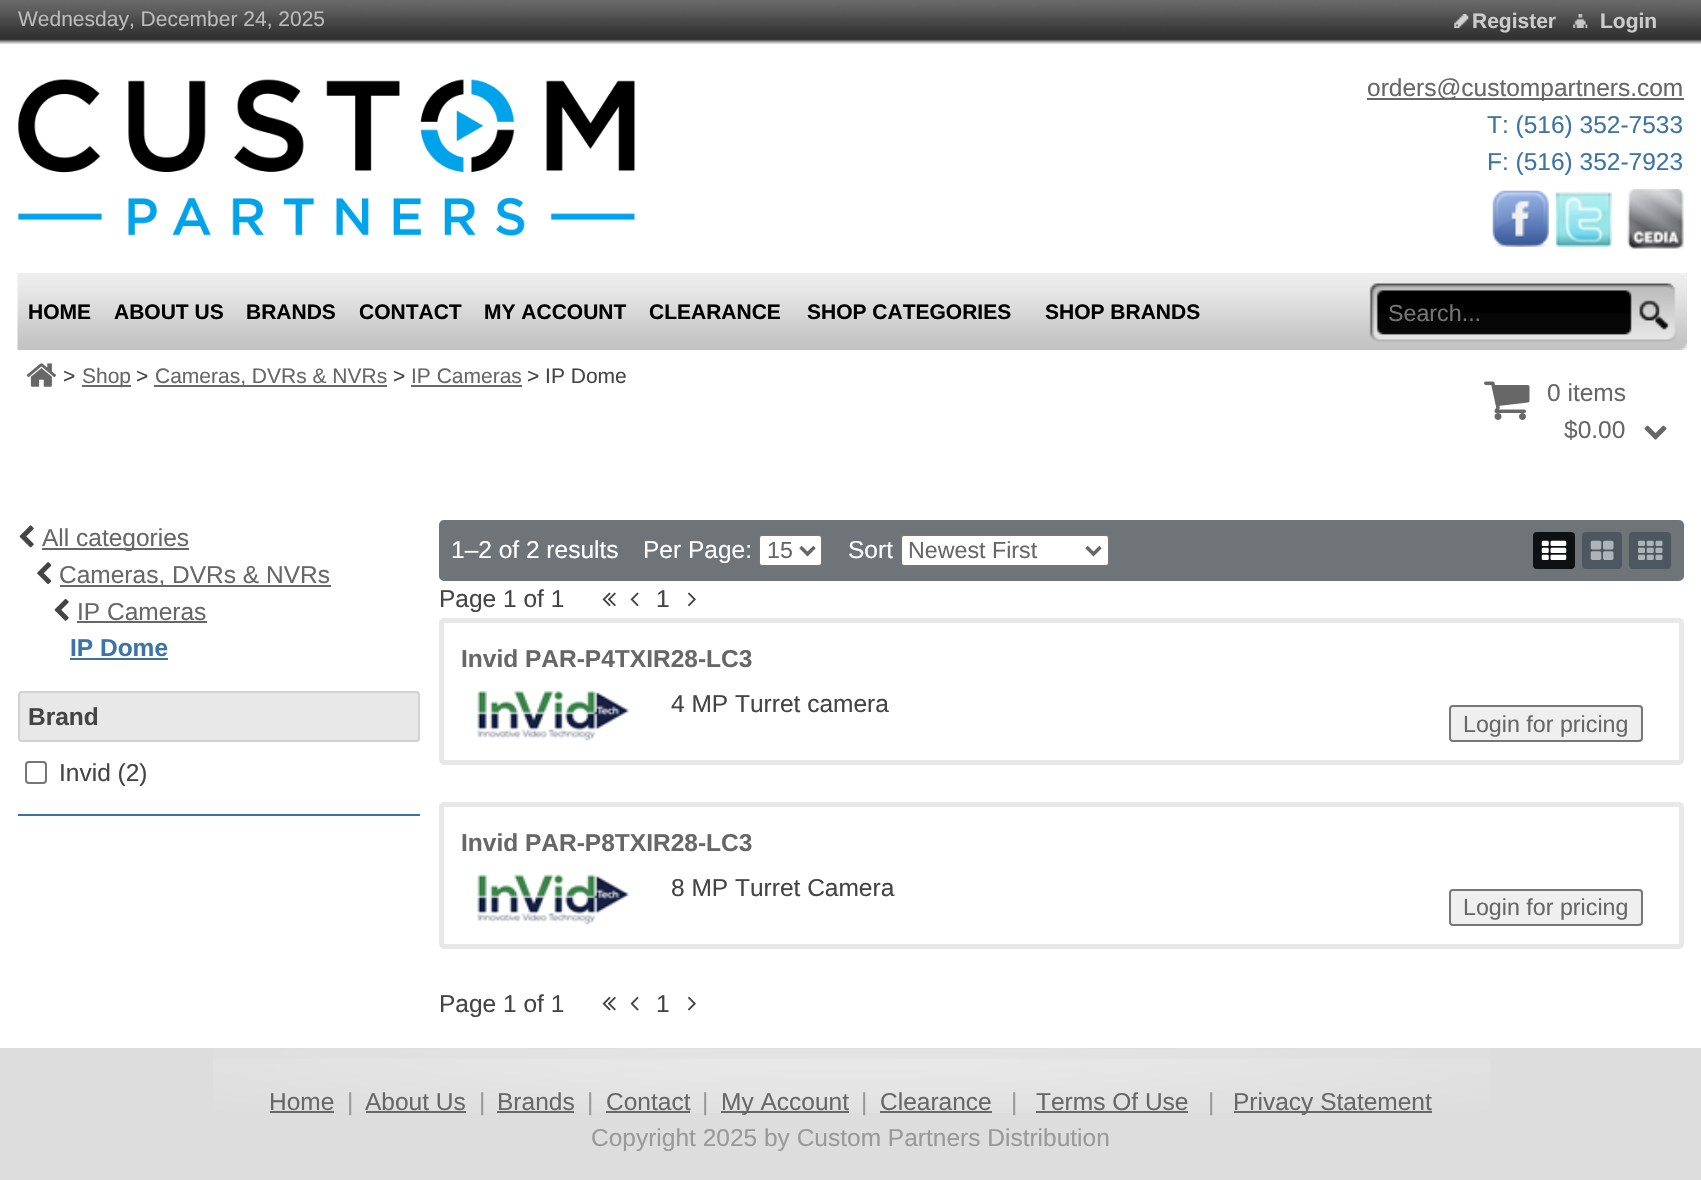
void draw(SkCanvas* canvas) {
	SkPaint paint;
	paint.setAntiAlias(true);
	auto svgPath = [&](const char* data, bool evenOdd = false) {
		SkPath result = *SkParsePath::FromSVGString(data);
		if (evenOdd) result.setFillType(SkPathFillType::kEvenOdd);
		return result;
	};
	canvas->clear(0xffffffff);
	canvas->drawImageRect(SkImages::DeferredFromEncodedData(SkData::MakeFromFileName("img1.png")), SkRect::MakeXYWH(0, 0, 1701, 44), SkSamplingOptions());
	SkFont f1(fontMgr->matchFamilyStyle("Liberation Sans", SkFontStyle::Normal()), 21);
	f1.setSubpixel(true);
	paint.setColor(0xffbbbbbb);
	canvas->drawString("Wednesday, December 24, 2025", 18, 26, f1, paint);
	canvas->drawImageRect(SkImages::DeferredFromEncodedData(SkData::MakeFromFileName("img2.png")), SkRect::MakeXYWH(1454, 14, 15, 14), SkSamplingOptions());
	SkFont f2(fontMgr->matchFamilyStyle("Liberation Sans", SkFontStyle::Bold()), 21);
	f2.setSubpixel(true);
	paint.setColor(0xffcccccc);
	canvas->drawString("Register", 1472, 28, f2, paint);
	canvas->drawImageRect(SkImages::DeferredFromEncodedData(SkData::MakeFromFileName("img3.png")), SkRect::MakeXYWH(1573, 14, 15, 14), SkSamplingOptions());
	canvas->drawString("Login", 1600, 28, f2, paint);
	canvas->drawImageRect(SkImages::DeferredFromEncodedData(SkData::MakeFromFileName("img4.png")), SkRect::MakeXYWH(17, 79, 619, 157), SkSamplingOptions());
	paint.setColor(0xff676767);
	canvas->drawRect(SkRect::MakeXYWH(1367, 98, 317, 2), paint);
	SkFont f3(fontMgr->matchFamilyStyle("Liberation Sans", SkFontStyle::Normal()), 24.5);
	f3.setSubpixel(true);
	canvas->drawString("orders@custompartners.com", 1367, 96, f3, paint);
	paint.setColor(0xff3c74a5);
	canvas->drawString("T: (516) 352-7533", 1487, 133, f3, paint);
	canvas->drawString("F: (516) 352-7923", 1487, 170, f3, paint);
	canvas->drawImageRect(SkImages::DeferredFromEncodedData(SkData::MakeFromFileName("img5.png")), SkRect::MakeXYWH(1492, 190, 57, 57), SkSamplingOptions());
	canvas->drawImageRect(SkImages::DeferredFromEncodedData(SkData::MakeFromFileName("img6.png")), SkRect::MakeXYWH(1555, 191, 57, 56), SkSamplingOptions());
	canvas->drawImageRect(SkImages::DeferredFromEncodedData(SkData::MakeFromFileName("img7.png")), SkRect::MakeXYWH(1627, 189, 57, 60), SkSamplingOptions());
	canvas->drawImageRect(SkImages::DeferredFromEncodedData(SkData::MakeFromFileName("img8.png")), SkRect::MakeXYWH(17, 273, 1352, 77), SkSamplingOptions());
	paint.setColor(0xff000000);
	canvas->drawString("HOME", 28, 319, f2, paint);
	canvas->drawString("ABOUT US", 114, 319, f2, paint);
	canvas->drawString("BRANDS", 246, 319, f2, paint);
	canvas->drawString("CONTACT", 359, 319, f2, paint);
	canvas->drawString("MY ACCOUNT", 484, 319, f2, paint);
	canvas->drawString("CLEARANCE", 649, 319, f2, paint);
	canvas->drawString("SHOP CATEGORIES", 807, 319, f2, paint);
	canvas->drawString("SHOP BRANDS", 1045, 319, f2, paint);
	canvas->drawImageRect(SkImages::DeferredFromEncodedData(SkData::MakeFromFileName("img9.png")), SkRect::MakeXYWH(1369, 273, 318, 77), SkSamplingOptions());
	SkFont f4(fontMgr->matchFamilyStyle("Liberation Sans", SkFontStyle::Normal()), 23.25);
	f4.setSubpixel(true);
	paint.setColor(0xff757575);
	canvas->drawString("Search...", 1388, 321, f4, paint);
	canvas->drawImageRect(SkImages::DeferredFromEncodedData(SkData::MakeFromFileName("img10.png")), SkRect::MakeXYWH(1639, 300, 30, 30), SkSamplingOptions());
	canvas->drawImageRect(SkImages::DeferredFromEncodedData(SkData::MakeFromFileName("img11.png")), SkRect::MakeXYWH(26, 363, 31, 24), SkSamplingOptions());
	paint.setColor(0xff444444);
	canvas->drawString(">", 63, 383, f1, paint);
	paint.setColor(0xff676767);
	canvas->drawRect(SkRect::MakeXYWH(82, 385, 49, 2), paint);
	canvas->drawString("Shop", 82, 383, f1, paint);
	paint.setColor(0xff444444);
	canvas->drawString(">", 136, 383, f1, paint);
	paint.setColor(0xff676767);
	canvas->drawRect(SkRect::MakeXYWH(154, 385, 233, 2), paint);
	canvas->drawString("Cameras, DVRs & NVRs", 155, 383, f1, paint);
	paint.setColor(0xff444444);
	canvas->drawString(">", 393, 383, f1, paint);
	paint.setColor(0xff676767);
	canvas->drawString("IP Cameras", 411, 383, f1, paint);
	canvas->drawRect(SkRect::MakeXYWH(411, 385, 111, 2), paint);
	paint.setColor(0xff444444);
	canvas->drawString("> IP Dome", 527, 383, f1, paint);
	canvas->drawImageRect(SkImages::DeferredFromEncodedData(SkData::MakeFromFileName("img12.png")), SkRect::MakeXYWH(1484, 381, 46, 39), SkSamplingOptions());
	paint.setColor(0xff676767);
	canvas->drawString("0 items", 1547, 401, f3, paint);
	canvas->drawString("$0.00", 1564, 438, f3, paint);
	canvas->drawImageRect(SkImages::DeferredFromEncodedData(SkData::MakeFromFileName("img13.png")), SkRect::MakeXYWH(1644, 425, 23, 15), SkSamplingOptions());
	canvas->drawImageRect(SkImages::DeferredFromEncodedData(SkData::MakeFromFileName("img14.png")), SkRect::MakeXYWH(19, 525, 15, 23), SkSamplingOptions());
	canvas->drawRect(SkRect::MakeXYWH(42, 548, 147, 2), paint);
	canvas->drawString("All categories", 42, 546, f3, paint);
	canvas->drawImageRect(SkImages::DeferredFromEncodedData(SkData::MakeFromFileName("img15.png")), SkRect::MakeXYWH(37, 562, 15, 23), SkSamplingOptions());
	canvas->drawRect(SkRect::MakeXYWH(60, 585, 271, 2), paint);
	canvas->drawString("Cameras, DVRs & NVRs", 59, 583, f3, paint);
	canvas->drawImageRect(SkImages::DeferredFromEncodedData(SkData::MakeFromFileName("img16.png")), SkRect::MakeXYWH(54, 598, 15, 23), SkSamplingOptions());
	canvas->drawString("IP Cameras", 77, 620, f3, paint);
	canvas->drawRect(SkRect::MakeXYWH(77, 621, 130, 2), paint);
	SkFont f5(fontMgr->matchFamilyStyle("Liberation Sans", SkFontStyle::Bold()), 24.5);
	f5.setSubpixel(true);
	paint.setColor(0xff3c74a5);
	canvas->drawString("IP Dome", 70, 656, f5, paint);
	paint.setColor(0xff3a73a2);
	canvas->drawRect(SkRect::MakeXYWH(70, 658, 98, 2), paint);
	canvas->drawRect(SkRect::MakeXYWH(18, 814, 402, 2), paint);
	paint.setColor(0xffe8e8e8);
	canvas->drawRoundRect(SkRect::MakeXYWH(19, 692, 400, 49), 3, 3, paint);
	paint.setStroke(true);
	paint.setStrokeWidth(2);
	paint.setColor(0xffd2d2d2);
	canvas->drawRoundRect(SkRect::MakeXYWH(19, 692, 400, 49), 3, 3, paint);
	paint.setStroke(false);
	paint.setColor(0xff444444);
	canvas->drawString("Brand", 28, 725, f5, paint);
	paint.setStroke(true);
	paint.setColor(0xff767676);
	canvas->drawRoundRect(SkRect::MakeXYWH(26, 762, 20, 21), 3, 3, paint);
	paint.setStroke(false);
	paint.setColor(0xff444444);
	canvas->drawString("Invid (2)", 59, 781, f3, paint);
	paint.setColor(0xff6f7478);
	canvas->drawRoundRect(SkRect::MakeXYWH(441, 522, 1241, 57), 3, 3, paint);
	paint.setStroke(true);
	paint.setStrokeWidth(4);
	canvas->drawRoundRect(SkRect::MakeXYWH(441, 522, 1241, 57), 3, 3, paint);
	paint.setStroke(false);
	paint.setColor(0xffffffff);
	canvas->drawString("1–2 of 2 results", 451, 558, f3, paint);
	canvas->drawString("Per Page:", 643, 558, f3, paint);
	canvas->drawRoundRect(SkRect::MakeXYWH(759, 535, 63, 31), 3, 3, paint);
	paint.setStroke(true);
	paint.setStrokeWidth(2);
	paint.setColor(0xff767676);
	canvas->drawRoundRect(SkRect::MakeXYWH(759, 535, 63, 31), 3, 3, paint);
	paint.setStrokeWidth(3.5);
	paint.setColor(0xff666666);
	canvas->drawPath(svgPath("M800.5 547L807.5 554L814.5 547"), paint);
	paint.setStroke(false);
	paint.setColor(0xff676767);
	canvas->drawString("15", 767, 558, f4, paint);
	paint.setColor(0xffffffff);
	canvas->drawString("Sort", 848, 558, f3, paint);
	canvas->drawRoundRect(SkRect::MakeXYWH(901, 535, 208, 31), 3, 3, paint);
	paint.setStroke(true);
	paint.setStrokeWidth(2);
	paint.setColor(0xff767676);
	canvas->drawRoundRect(SkRect::MakeXYWH(901, 535, 208, 31), 3, 3, paint);
	paint.setStrokeWidth(3.5);
	paint.setColor(0xff666666);
	canvas->drawPath(svgPath("M1086.5 547L1093.5 554L1100.5 547"), paint);
	paint.setStroke(false);
	paint.setColor(0xff676767);
	canvas->drawString("Newest First", 908, 558, f4, paint);
	paint.setColor(0xff0d1114);
	canvas->drawRoundRect(SkRect::MakeXYWH(1533, 532, 42, 37), 4, 4, paint);
	canvas->drawImageRect(SkImages::DeferredFromEncodedData(SkData::MakeFromFileName("img17.png")), SkRect::MakeXYWH(1541, 540, 26, 20), SkSamplingOptions());
	paint.setColor(0xff4e5660);
	canvas->drawRoundRect(SkRect::MakeXYWH(1582, 532, 40, 37), 4, 4, paint);
	canvas->drawImageRect(SkImages::DeferredFromEncodedData(SkData::MakeFromFileName("img18.png")), SkRect::MakeXYWH(1590, 540, 24, 20), SkSamplingOptions());
	canvas->drawRoundRect(SkRect::MakeXYWH(1629, 532, 42, 37), 4, 4, paint);
	canvas->drawImageRect(SkImages::DeferredFromEncodedData(SkData::MakeFromFileName("img19.png")), SkRect::MakeXYWH(1638, 540, 25, 20), SkSamplingOptions());
	paint.setColor(0xff444444);
	canvas->drawString("Page 1 of 1", 439, 607, f3, paint);
	canvas->drawImageRect(SkImages::DeferredFromEncodedData(SkData::MakeFromFileName("img20.png")), SkRect::MakeXYWH(602, 592, 14, 15), SkSamplingOptions());
	canvas->drawImageRect(SkImages::DeferredFromEncodedData(SkData::MakeFromFileName("img21.png")), SkRect::MakeXYWH(630, 592, 9, 15), SkSamplingOptions());
	canvas->drawString("1", 656, 607, f3, paint);
	canvas->drawImageRect(SkImages::DeferredFromEncodedData(SkData::MakeFromFileName("img22.png")), SkRect::MakeXYWH(688, 592, 8, 15), SkSamplingOptions());
	paint.setStroke(true);
	paint.setStrokeWidth(5);
	paint.setColor(0xffe8e8e8);
	canvas->drawRoundRect(SkRect::MakeXYWH(441.5, 620.5, 1240, 142), 2.5, 2.5, paint);
	paint.setStroke(false);
	paint.setColor(0xff676767);
	canvas->drawString("Invid PAR-P4TXIR28-LC3", 461, 667, f5, paint);
	canvas->drawImageRect(SkImages::DeferredFromEncodedData(SkData::MakeFromFileName("img23.png")), SkRect::MakeXYWH(477, 690, 152, 51), SkSamplingOptions());
	paint.setColor(0xff444444);
	canvas->drawString("4 MP Turret camera", 671, 712, f3, paint);
	paint.setColor(0xffefefef);
	canvas->drawRoundRect(SkRect::MakeXYWH(1450, 706, 192, 35), 3, 3, paint);
	paint.setStroke(true);
	paint.setStrokeWidth(2);
	paint.setColor(0xff767676);
	canvas->drawRoundRect(SkRect::MakeXYWH(1450, 706, 192, 35), 3, 3, paint);
	paint.setStroke(false);
	paint.setColor(0xff676767);
	canvas->drawString("Login for pricing", 1463, 732, f4, paint);
	paint.setStroke(true);
	paint.setStrokeWidth(5);
	paint.setColor(0xffe8e8e8);
	canvas->drawRoundRect(SkRect::MakeXYWH(441.5, 804.5, 1240, 142), 2.5, 2.5, paint);
	paint.setStroke(false);
	paint.setColor(0xff676767);
	canvas->drawString("Invid PAR-P8TXIR28-LC3", 461, 851, f5, paint);
	canvas->drawImageRect(SkImages::DeferredFromEncodedData(SkData::MakeFromFileName("img24.png")), SkRect::MakeXYWH(477, 874, 152, 51), SkSamplingOptions());
	paint.setColor(0xff444444);
	canvas->drawString("8 MP Turret Camera", 671, 896, f3, paint);
	paint.setColor(0xffefefef);
	canvas->drawRoundRect(SkRect::MakeXYWH(1450, 890, 192, 35), 3, 3, paint);
	paint.setStroke(true);
	paint.setStrokeWidth(2);
	paint.setColor(0xff767676);
	canvas->drawRoundRect(SkRect::MakeXYWH(1450, 890, 192, 35), 3, 3, paint);
	paint.setStroke(false);
	paint.setColor(0xff676767);
	canvas->drawString("Login for pricing", 1463, 915, f4, paint);
	paint.setColor(0xff444444);
	canvas->drawString("Page 1 of 1", 439, 1012, f3, paint);
	canvas->drawImageRect(SkImages::DeferredFromEncodedData(SkData::MakeFromFileName("img25.png")), SkRect::MakeXYWH(602, 996, 14, 15), SkSamplingOptions());
	canvas->drawImageRect(SkImages::DeferredFromEncodedData(SkData::MakeFromFileName("img26.png")), SkRect::MakeXYWH(630, 996, 9, 15), SkSamplingOptions());
	canvas->drawString("1", 656, 1012, f3, paint);
	canvas->drawImageRect(SkImages::DeferredFromEncodedData(SkData::MakeFromFileName("img27.png")), SkRect::MakeXYWH(688, 996, 8, 15), SkSamplingOptions());
	paint.setColor(0xffdddddd);
	canvas->drawRect(SkRect::MakeXYWH(0, 1048, 1701, 132), paint);
	canvas->drawImageRect(SkImages::DeferredFromEncodedData(SkData::MakeFromFileName("img28.png")), SkRect::MakeXYWH(213, 1048, 1277, 65), SkSamplingOptions());
	paint.setColor(0xff676767);
	canvas->drawString("Home", 269, 1110, f3, paint);
	canvas->drawRect(SkRect::MakeXYWH(270, 1111, 64, 2), paint);
	paint.setColor(0xff999999);
	canvas->drawString("|", 347, 1110, f3, paint);
	paint.setColor(0xff676767);
	canvas->drawString("About Us", 365, 1110, f3, paint);
	canvas->drawRect(SkRect::MakeXYWH(366, 1111, 100, 2), paint);
	paint.setColor(0xff999999);
	canvas->drawString("|", 479, 1110, f3, paint);
	paint.setColor(0xff676767);
	canvas->drawString("Brands", 497, 1110, f3, paint);
	canvas->drawRect(SkRect::MakeXYWH(497, 1111, 77, 2), paint);
	paint.setColor(0xff999999);
	canvas->drawString("|", 587, 1110, f3, paint);
	paint.setColor(0xff676767);
	canvas->drawString("Contact", 606, 1110, f3, paint);
	canvas->drawRect(SkRect::MakeXYWH(606, 1111, 84, 2), paint);
	paint.setColor(0xff999999);
	canvas->drawString("|", 702, 1110, f3, paint);
	paint.setColor(0xff676767);
	canvas->drawRect(SkRect::MakeXYWH(721, 1111, 128, 2), paint);
	canvas->drawString("My Account", 721, 1110, f3, paint);
	paint.setColor(0xff999999);
	canvas->drawString("|", 861, 1110, f3, paint);
	paint.setColor(0xff676767);
	canvas->drawString("Clearance", 880, 1110, f3, paint);
	canvas->drawRect(SkRect::MakeXYWH(880, 1111, 112, 2), paint);
	paint.setColor(0xff999999);
	canvas->drawString("|", 1011, 1110, f3, paint);
	paint.setColor(0xff676767);
	canvas->drawString("Terms Of Use", 1036, 1110, f3, paint);
	canvas->drawRect(SkRect::MakeXYWH(1036, 1111, 152, 2), paint);
	paint.setColor(0xff999999);
	canvas->drawString("|", 1208, 1110, f3, paint);
	paint.setColor(0xff676767);
	canvas->drawRect(SkRect::MakeXYWH(1234, 1111, 198, 2), paint);
	canvas->drawString("Privacy Statement", 1233, 1110, f3, paint);
	paint.setColor(0xff999999);
	canvas->drawString("Copyright 2025 by Custom Partners Distribution", 591, 1146, f3, paint);
}
